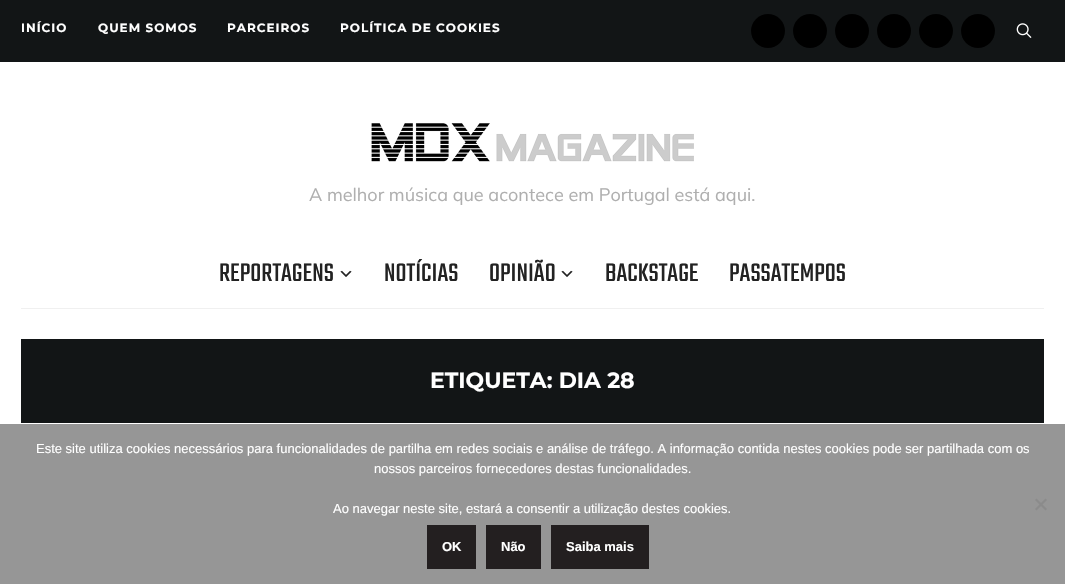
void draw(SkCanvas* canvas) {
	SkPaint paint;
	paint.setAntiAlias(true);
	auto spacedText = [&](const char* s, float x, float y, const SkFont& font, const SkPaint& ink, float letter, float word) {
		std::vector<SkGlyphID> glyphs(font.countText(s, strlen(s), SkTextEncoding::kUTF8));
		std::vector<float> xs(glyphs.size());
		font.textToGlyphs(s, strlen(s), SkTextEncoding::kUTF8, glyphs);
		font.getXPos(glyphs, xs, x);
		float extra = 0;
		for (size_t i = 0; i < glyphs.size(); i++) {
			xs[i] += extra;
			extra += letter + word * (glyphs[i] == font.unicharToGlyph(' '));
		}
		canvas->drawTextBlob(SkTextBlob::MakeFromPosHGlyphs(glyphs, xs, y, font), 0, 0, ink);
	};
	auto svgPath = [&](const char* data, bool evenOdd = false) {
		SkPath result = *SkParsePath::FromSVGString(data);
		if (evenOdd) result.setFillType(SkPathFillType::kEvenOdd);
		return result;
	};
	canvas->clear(0xffffffff);
	paint.setColor(0xff121516);
	canvas->drawRect(SkRect::MakeXYWH(0, 0, 1065, 62), paint);
	SkFont f1(fontMgr->matchFamilyStyle("Montserrat", SkFontStyle::Bold()), 12);
	f1.setSubpixel(true);
	paint.setColor(0xffffffff);
	spacedText("INÍCIO", 21, 32, f1, paint, 1, 0);
	spacedText("QUEM SOMOS", 98, 32, f1, paint, 1, 0);
	spacedText("PARCEIROS", 227, 32, f1, paint, 1, 0);
	spacedText("POLÍTICA DE COOKIES", 340, 32, f1, paint, 1, 0);
	paint.setColor(0xff000000);
	canvas->drawCircle(768, 31, 17, paint);
	canvas->drawCircle(810, 31, 17, paint);
	canvas->drawCircle(852, 31, 17, paint);
	canvas->drawCircle(894, 31, 17, paint);
	canvas->drawCircle(936, 31, 17, paint);
	canvas->drawCircle(978, 31, 17, paint);
	canvas->drawImageRect(SkImages::DeferredFromEncodedData(SkData::MakeFromFileName("img1.png")), SkRect::MakeXYWH(1016, 23, 16, 15), SkSamplingOptions());
	canvas->drawImageRect(SkImages::DeferredFromEncodedData(SkData::MakeFromFileName("img2.png")), SkRect::MakeXYWH(371, 123, 323, 39), SkSamplingOptions());
	SkFont f2(fontMgr->matchFamilyStyle("Mulish", SkFontStyle::Normal()), 18);
	f2.setSubpixel(true);
	paint.setColor(0xffafafaf);
	canvas->drawString("A melhor música que acontece em Portugal está aqui.", 309, 201, f2, paint);
	paint.setColor(0xfff0f0f0);
	canvas->drawRect(SkRect::MakeXYWH(21, 308, 1023, 1), paint);
	SkFont f3(fontMgr->matchFamilyStyle("Teko", SkFontStyle::Normal()), 28);
	f3.setSubpixel(true);
	paint.setColor(0xff222222);
	canvas->drawString("REPORTAGENS", 219, 281, f3, paint);
	canvas->drawImageRect(SkImages::DeferredFromEncodedData(SkData::MakeFromFileName("img3.png")), SkRect::MakeXYWH(340, 270, 12, 7), SkSamplingOptions());
	canvas->drawString("NOTÍCIAS", 384, 281, f3, paint);
	canvas->drawString("OPINIÃO", 489, 281, f3, paint);
	canvas->drawImageRect(SkImages::DeferredFromEncodedData(SkData::MakeFromFileName("img3.png")), SkRect::MakeXYWH(561, 270, 12, 7), SkSamplingOptions());
	canvas->drawString("BACKSTAGE", 605, 281, f3, paint);
	canvas->drawString("PASSATEMPOS", 729, 281, f3, paint);
	paint.setColor(0xff121516);
	canvas->drawRect(SkRect::MakeXYWH(21, 339, 1023, 84), paint);
	SkFont f4(fontMgr->matchFamilyStyle("Montserrat", SkFontStyle::Bold()), 22);
	f4.setSubpixel(true);
	paint.setColor(0xffffffff);
	canvas->drawString("ETIQUETA: DIA 28", 430, 388, f4, paint);
	paint.setColor(0xff969696);
	canvas->drawRect(SkRect::MakeXYWH(0, 424, 1065, 160), paint);
	SkFont f5(fontMgr->matchFamilyStyle("Liberation Sans", SkFontStyle::Normal()), 13);
	f5.setSubpixel(true);
	paint.setColor(0xffffffff);
	canvas->drawString("Este site utiliza cookies necessários para funcionalidades de partilha em redes sociais e análise de tráfego. A informação contida nestes cookies pode ser partilhada com os", 36, 453, f5, paint);
	canvas->drawString("nossos parceiros fornecedores destas funcionalidades.", 374, 473, f5, paint);
	canvas->drawString("Ao navegar neste site, estará a consentir a utilização destes cookies.", 333, 513, f5, paint);
	paint.setColor(0xff8b8b8b);
	canvas->drawPath(svgPath("M1045.5 498.5L1047 500L1036.5 510.5L1035 509Z"), paint);
	canvas->drawPath(svgPath("M1035 500L1036.5 498.5L1047 509L1045.5 510.5Z"), paint);
	paint.setColor(0xff231f20);
	canvas->drawRect(SkRect::MakeXYWH(427, 525, 49, 44), paint);
	SkFont f6(fontMgr->matchFamilyStyle("Liberation Sans", SkFontStyle::Bold()), 13);
	f6.setSubpixel(true);
	paint.setColor(0xffffffff);
	canvas->drawString("OK", 442, 551, f6, paint);
	paint.setColor(0xff231f20);
	canvas->drawRect(SkRect::MakeXYWH(486, 525, 55, 44), paint);
	paint.setColor(0xffffffff);
	canvas->drawString("Não", 501, 551, f6, paint);
	paint.setColor(0xff231f20);
	canvas->drawRect(SkRect::MakeXYWH(551, 525, 98, 44), paint);
	paint.setColor(0xffffffff);
	canvas->drawString("Saiba mais", 566, 551, f6, paint);
}
